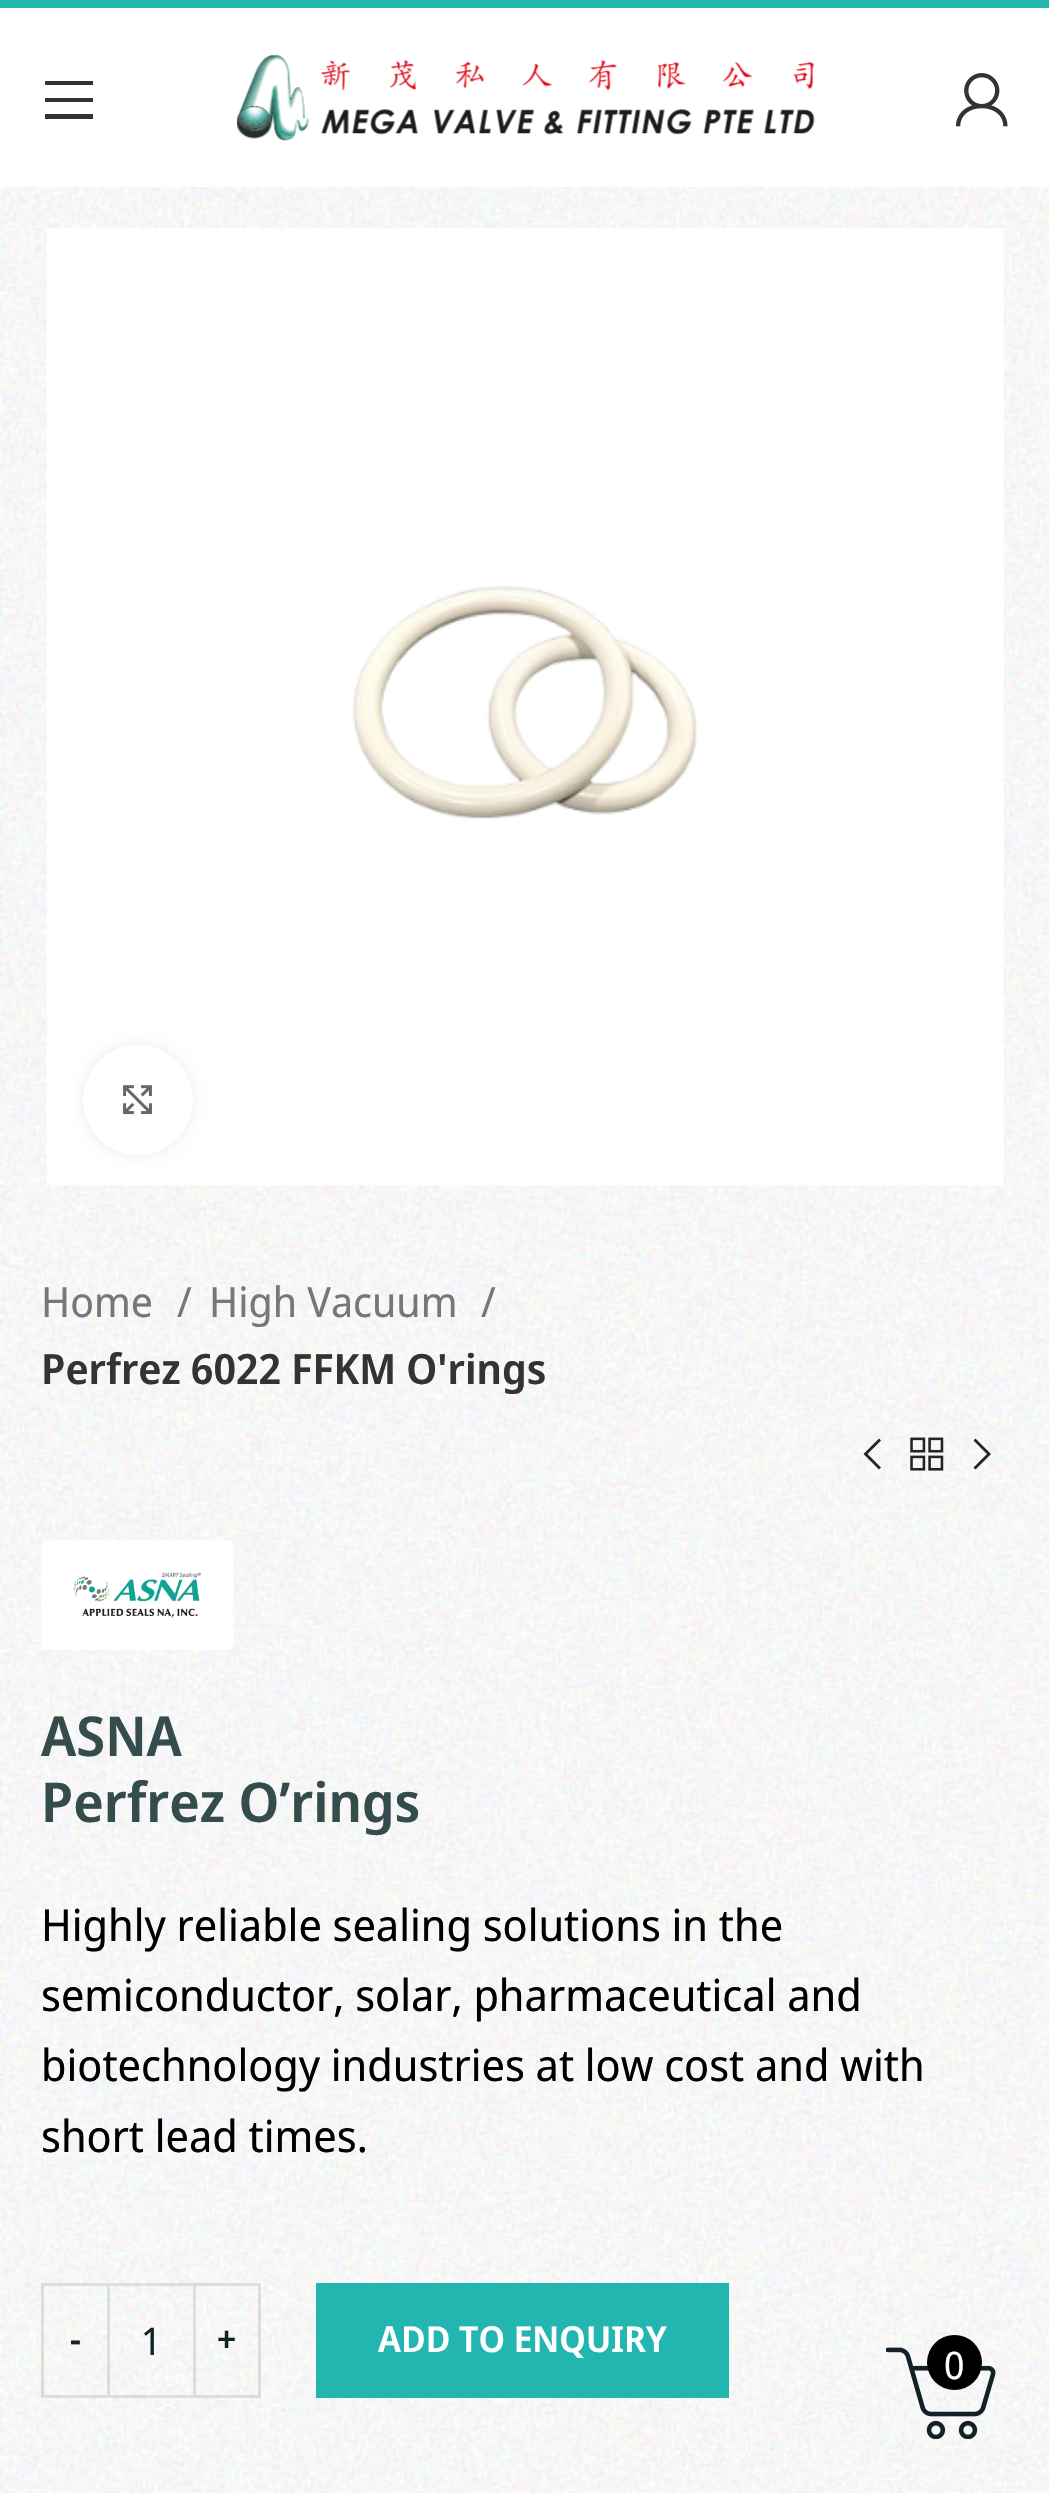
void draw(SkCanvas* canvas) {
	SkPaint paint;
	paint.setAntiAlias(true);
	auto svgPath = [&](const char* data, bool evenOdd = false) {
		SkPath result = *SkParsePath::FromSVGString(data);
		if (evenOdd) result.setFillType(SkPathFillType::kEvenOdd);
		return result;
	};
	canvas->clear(0xffffffff);
	paint.setColor(0xff23b6b1);
	canvas->drawRect(SkRect::MakeXYWH(0, 0, 1049, 8), paint);
	paint.setColor(0xff333333);
	canvas->drawPath(svgPath("M45 85H93V81H45ZM45 102H93V98H45ZM45 119H93V114H45Z"), paint);
	canvas->drawImageRect(SkImages::DeferredFromEncodedData(SkData::MakeFromFileName("img1.png")), SkRect::MakeXYWH(237, 55, 578, 86), SkSamplingOptions());
	canvas->drawImageRect(SkImages::DeferredFromEncodedData(SkData::MakeFromFileName("img2.png")), SkRect::MakeXYWH(956, 73, 52, 54), SkSamplingOptions());
	canvas->drawImageRect(SkImages::DeferredFromEncodedData(SkData::MakeFromFileName("img3.png")), SkRect::MakeXYWH(0, 187, 1049, 2306), SkSamplingOptions());
	canvas->drawImageRect(SkImages::DeferredFromEncodedData(SkData::MakeFromFileName("img4.png")), SkRect::MakeXYWH(46, 228, 958, 958), SkSamplingOptions());
	paint.setColor(0x14000000);
	paint.setMaskFilter(SkMaskFilter::MakeBlur(kNormal_SkBlurStyle, 7));
	canvas->drawRoundRect(SkRect::MakeXYWH(83, 1045, 110, 110), 55, 55, paint);
	paint.setMaskFilter(nullptr);
	paint.setColor(0xffffffff);
	canvas->drawCircle(138, 1100, 55, paint);
	canvas->drawImageRect(SkImages::DeferredFromEncodedData(SkData::MakeFromFileName("img5.png")), SkRect::MakeXYWH(123, 1085, 29, 30), SkSamplingOptions());
	SkFont f1(fontMgr->matchFamilyStyle("Noto Sans Display", SkFontStyle::Normal()), 41.75);
	f1.setSubpixel(true);
	paint.setColor(0xff777777);
	canvas->drawString("Home", 41, 1317, f1, paint);
	canvas->drawString("/", 177, 1317, f1, paint);
	canvas->drawString("High Vacuum", 209, 1317, f1, paint);
	canvas->drawString("/", 481, 1317, f1, paint);
	SkFont f2(fontMgr->matchFamilyStyle("Noto Sans Display", SkFontStyle(600, SkFontStyle::kNormal_Width, SkFontStyle::kUpright_Slant)), 41.75);
	f2.setSubpixel(true);
	paint.setColor(0xff333333);
	canvas->drawString("Perfrez 6022 FFKM O'rings", 41, 1384, f2, paint);
	paint.setColor(0xff242424);
	canvas->drawPath(svgPath("M881 1440.5L879 1438.5L863.5 1454L879 1469.5L881 1467.5L867.5 1454Z"), paint);
	canvas->drawImageRect(SkImages::DeferredFromEncodedData(SkData::MakeFromFileName("img6.png")), SkRect::MakeXYWH(910, 1437, 34, 34), SkSamplingOptions());
	canvas->drawPath(svgPath("M973.5 1440.5L987 1454L973.5 1467.5L975.5 1469.5L991 1454L975.5 1438.5Z"), paint);
	canvas->drawImageRect(SkImages::DeferredFromEncodedData(SkData::MakeFromFileName("img7.png")), SkRect::MakeXYWH(41, 1540, 193, 110), SkSamplingOptions());
	SkFont f3(fontMgr->matchFamilyStyle("Noto Sans Display", SkFontStyle(600, SkFontStyle::kNormal_Width, SkFontStyle::kUpright_Slant)), 55);
	f3.setSubpixel(true);
	paint.setColor(0xff354c4d);
	canvas->drawString("ASNA", 41, 1756, f3, paint);
	canvas->drawString("Perfrez O’rings", 41, 1822, f3, paint);
	SkFont f4(fontMgr->matchFamilyStyle("Noto Sans Display", SkFontStyle::Normal()), 44);
	f4.setSubpixel(true);
	paint.setColor(0xff000000);
	canvas->drawString("Highly reliable sealing solutions in the", 41, 1941, f4, paint);
	canvas->drawString("semiconductor, solar, pharmaceutical and", 41, 2011, f4, paint);
	canvas->drawString("biotechnology industries at low cost and with", 41, 2081, f4, paint);
	canvas->drawString("short lead times.", 41, 2152, f4, paint);
	paint.setStroke(true);
	paint.setStrokeWidth(3);
	paint.setColor(0x1a000000);
	canvas->drawRect(SkRect::MakeXYWH(42.5, 2284.5, 66, 112), paint);
	SkFont f5(fontMgr->matchFamilyStyle("Noto Sans Display", SkFontStyle(600, SkFontStyle::kNormal_Width, SkFontStyle::kUpright_Slant)), 35.75);
	f5.setSubpixel(true);
	paint.setStroke(false);
	paint.setColor(0xff122126);
	canvas->drawString("-", 70, 2352, f5, paint);
	paint.setColor(0x1a000000);
	canvas->drawRect(SkRect::MakeXYWH(110, 2283, 83, 3), paint);
	canvas->drawRect(SkRect::MakeXYWH(110, 2395, 83, 3), paint);
	SkFont f6(fontMgr->matchFamilyStyle("Noto Sans Display", SkFontStyle::Normal()), 38);
	f6.setSubpixel(true);
	paint.setColor(0xff122126);
	canvas->drawString("1", 141, 2355, f6, paint);
	paint.setStroke(true);
	paint.setColor(0x1a000000);
	canvas->drawRect(SkRect::MakeXYWH(194.5, 2284.5, 65, 112), paint);
	paint.setStroke(false);
	paint.setColor(0xff122126);
	canvas->drawString("+", 217, 2352, f5, paint);
	paint.setColor(0xff23b6b1);
	canvas->drawRect(SkRect::MakeXYWH(316, 2283, 413, 115), paint);
	paint.setColor(0xffffffff);
	canvas->drawString("ADD TO ENQUIRY", 378, 2352, f5, paint);
	canvas->drawImageRect(SkImages::DeferredFromEncodedData(SkData::MakeFromFileName("img8.png")), SkRect::MakeXYWH(886, 2347, 110, 92), SkSamplingOptions());
	paint.setColor(0xff000000);
	canvas->drawCircle(954.5, 2362.5, 27.5, paint);
	paint.setColor(0xffffffff);
	canvas->drawString("0", 944, 2379, f6, paint);
}
